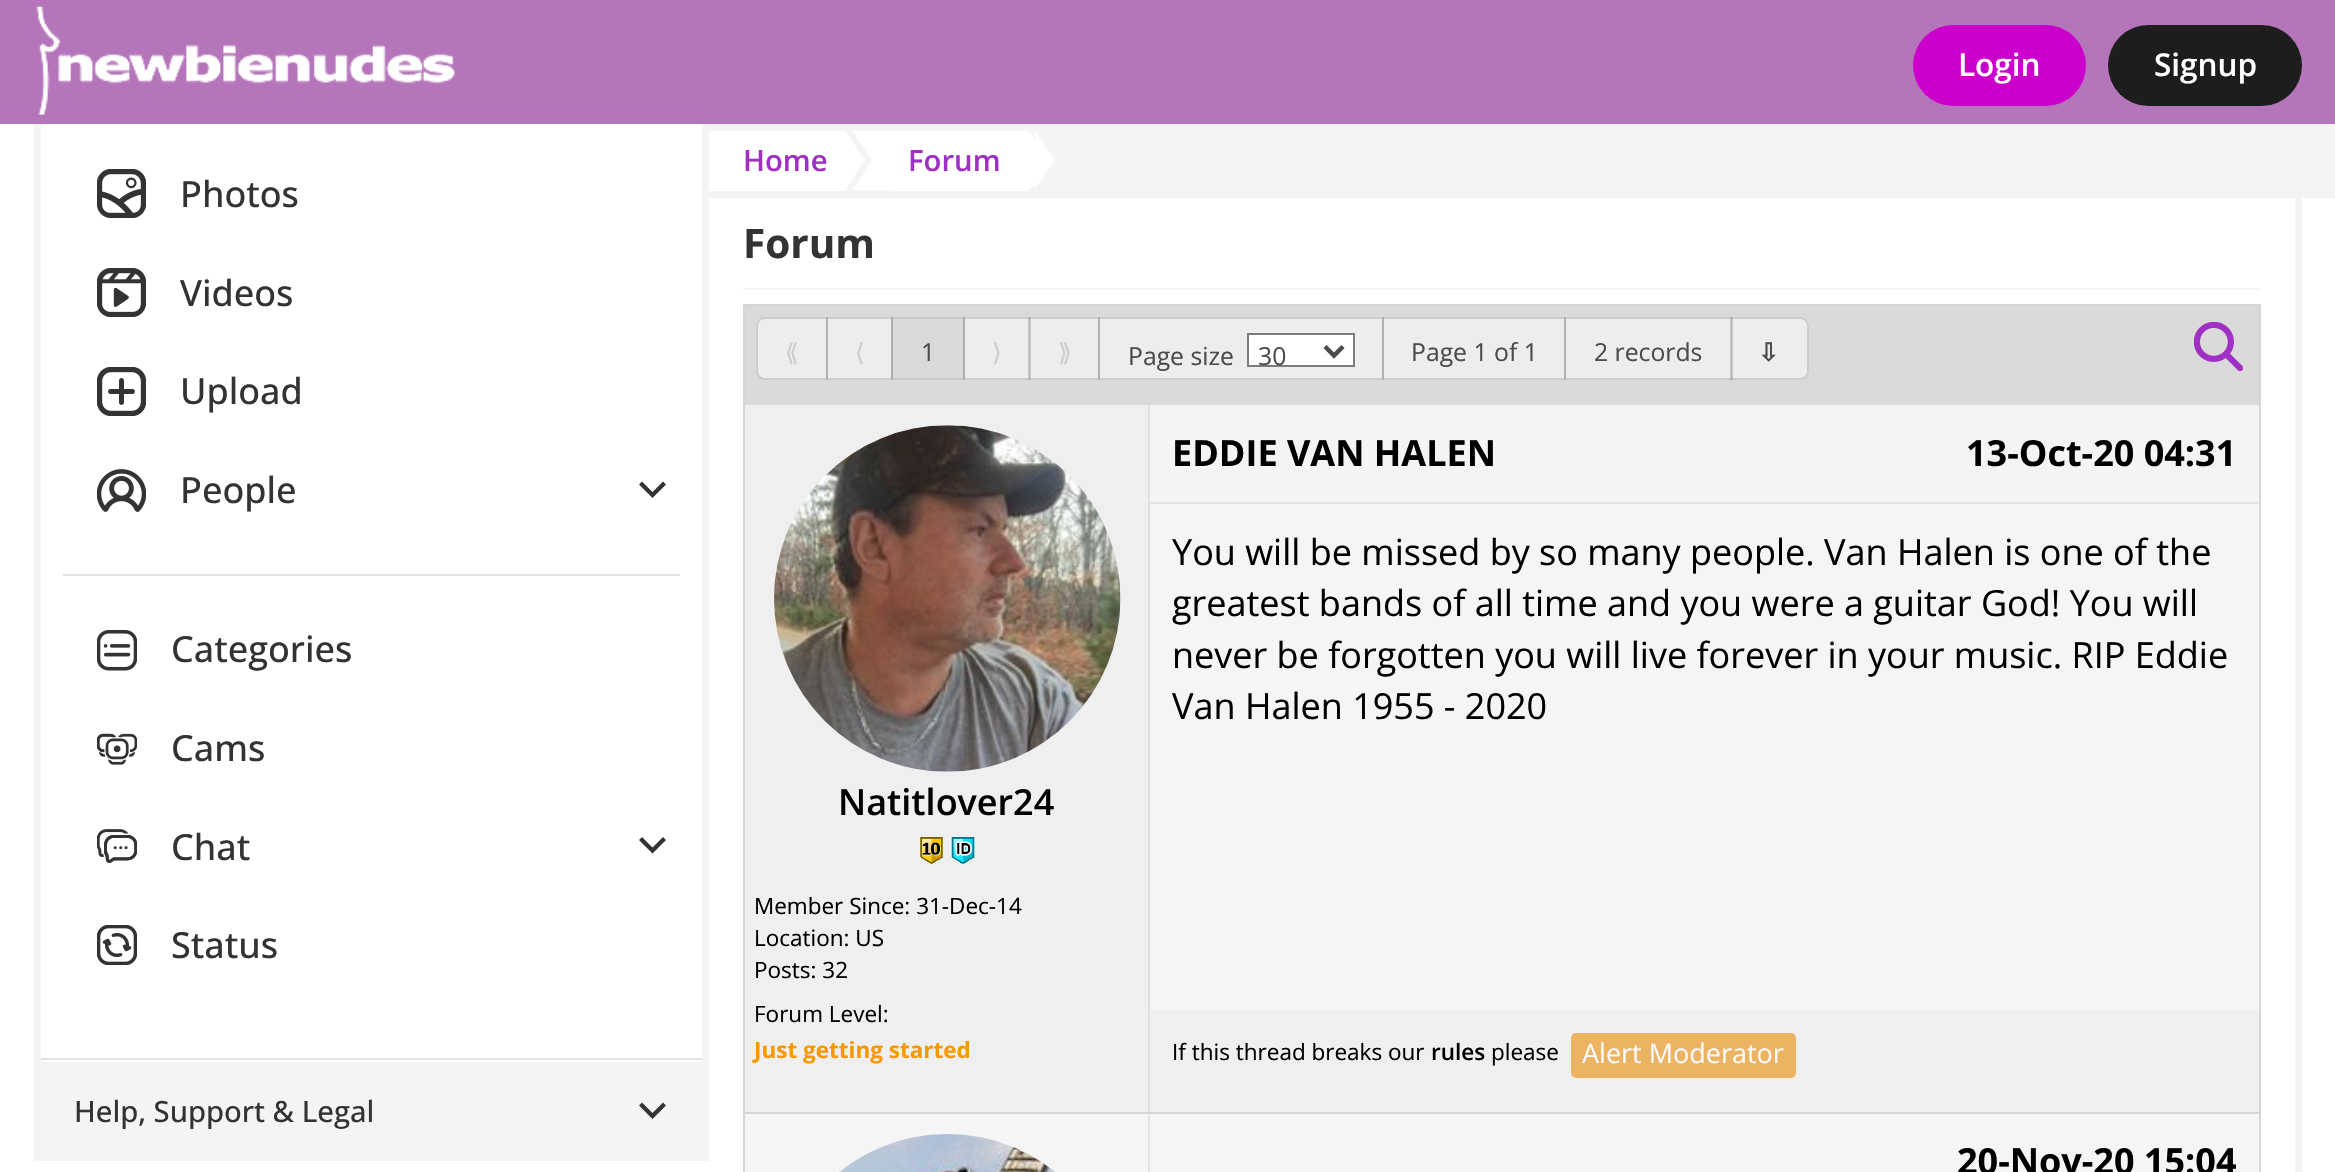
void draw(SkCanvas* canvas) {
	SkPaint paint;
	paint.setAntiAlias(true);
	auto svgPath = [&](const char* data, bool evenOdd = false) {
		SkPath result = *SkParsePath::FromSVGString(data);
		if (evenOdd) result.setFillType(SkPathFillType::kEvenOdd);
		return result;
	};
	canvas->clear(0xffffffff);
	paint.setColor(0xffb575ba);
	canvas->drawRect(SkRect::MakeXYWH(0, 0, 2335, 124), paint);
	canvas->drawImageRect(SkImages::DeferredFromEncodedData(SkData::MakeFromFileName("img1.png")), SkRect::MakeXYWH(36, 6, 419, 109), SkSamplingOptions());
	paint.setColor(0xffcc00cc);
	canvas->drawRoundRect(SkRect::MakeXYWH(1913, 25, 173, 81), 40.5, 40.5, paint);
	SkFont f1(fontMgr->matchFamilyStyle("Open Sans", SkFontStyle(600, SkFontStyle::kNormal_Width, SkFontStyle::kUpright_Slant)), 31.5);
	f1.setSubpixel(true);
	paint.setColor(0xffffffff);
	canvas->drawString("Login", 1958, 76, f1, paint);
	paint.setColor(0xff1d1d1d);
	canvas->drawRoundRect(SkRect::MakeXYWH(2108, 25, 194, 81), 40.5, 40.5, paint);
	paint.setColor(0xffffffff);
	canvas->drawString("Signup", 2154, 76, f1, paint);
	paint.setColor(0xfff4f4f4);
	canvas->drawRect(SkRect::MakeXYWH(702, 124, 7, 1037), paint);
	canvas->drawRect(SkRect::MakeXYWH(34, 124, 7, 1037), paint);
	canvas->drawImageRect(SkImages::DeferredFromEncodedData(SkData::MakeFromFileName("img2.png")), SkRect::MakeXYWH(97, 169, 49, 49), SkSamplingOptions());
	SkFont f2(fontMgr->matchFamilyStyle("Open Sans", SkFontStyle(500, SkFontStyle::kNormal_Width, SkFontStyle::kUpright_Slant)), 36);
	f2.setSubpixel(true);
	paint.setColor(0xff333333);
	canvas->drawString("Photos", 180, 207, f2, paint);
	canvas->drawImageRect(SkImages::DeferredFromEncodedData(SkData::MakeFromFileName("img3.png")), SkRect::MakeXYWH(97, 268, 49, 49), SkSamplingOptions());
	canvas->drawString("Videos", 180, 306, f2, paint);
	canvas->drawImageRect(SkImages::DeferredFromEncodedData(SkData::MakeFromFileName("img4.png")), SkRect::MakeXYWH(97, 367, 49, 49), SkSamplingOptions());
	canvas->drawString("Upload", 180, 404, f2, paint);
	canvas->drawImageRect(SkImages::DeferredFromEncodedData(SkData::MakeFromFileName("img5.png")), SkRect::MakeXYWH(97, 469, 49, 43), SkSamplingOptions());
	canvas->drawString("People", 180, 503, f2, paint);
	canvas->drawPath(svgPath("M652.5 498L639 484.5L642 481.5L652.5 492L663 481.5L666 484.5Z"), paint);
	paint.setColor(0xffe2e2e2);
	canvas->drawRect(SkRect::MakeXYWH(63, 574, 617, 2), paint);
	canvas->drawImageRect(SkImages::DeferredFromEncodedData(SkData::MakeFromFileName("img6.png")), SkRect::MakeXYWH(97, 630, 40, 41), SkSamplingOptions());
	paint.setColor(0xff333333);
	canvas->drawString("Categories", 171, 662, f2, paint);
	canvas->drawImageRect(SkImages::DeferredFromEncodedData(SkData::MakeFromFileName("img7.png")), SkRect::MakeXYWH(97, 733, 40, 32), SkSamplingOptions());
	canvas->drawString("Cams", 171, 761, f2, paint);
	canvas->drawImageRect(SkImages::DeferredFromEncodedData(SkData::MakeFromFileName("img8.png")), SkRect::MakeXYWH(97, 829, 40, 34), SkSamplingOptions());
	canvas->drawString("Chat", 171, 860, f2, paint);
	canvas->drawPath(svgPath("M652.5 853.5L639 840L642 837L652.5 847.5L663 837L666 840Z"), paint);
	canvas->drawImageRect(SkImages::DeferredFromEncodedData(SkData::MakeFromFileName("img9.png")), SkRect::MakeXYWH(97, 925, 40, 40), SkSamplingOptions());
	canvas->drawString("Status", 171, 958, f2, paint);
	paint.setColor(0xffe2e2e2);
	canvas->drawRect(SkRect::MakeXYWH(41, 1058, 661, 2), paint);
	paint.setColor(0xfff4f4f4);
	canvas->drawRect(SkRect::MakeXYWH(41, 1062, 661, 99), paint);
	SkFont f3(fontMgr->matchFamilyStyle("Open Sans", SkFontStyle(500, SkFontStyle::kNormal_Width, SkFontStyle::kUpright_Slant)), 29.25);
	f3.setSubpixel(true);
	paint.setColor(0xff333333);
	canvas->drawString("Help, Support & Legal", 74, 1122, f3, paint);
	canvas->drawPath(svgPath("M652.5 1119L639 1105.5L642 1102.5L652.5 1113L663 1102.5L666 1105.5Z"), paint);
	paint.setColor(0xfff4f4f4);
	canvas->drawRect(SkRect::MakeXYWH(2295, 198, 7, 974), paint);
	canvas->drawRect(SkRect::MakeXYWH(709, 124, 1626, 74), paint);
	paint.setColor(0xffffffff);
	canvas->drawRect(SkRect::MakeXYWH(709, 131, 137, 60), paint);
	SkFont f4(fontMgr->matchFamilyStyle("Open Sans", SkFontStyle(600, SkFontStyle::kNormal_Width, SkFontStyle::kUpright_Slant)), 29.25);
	f4.setSubpixel(true);
	paint.setColor(0xff9f30c3);
	canvas->drawString("Home", 743, 171, f4, paint);
	paint.setColor(0xffffffff);
	canvas->drawPath(svgPath("M865 160L846 189V132Z"), paint);
	canvas->drawPath(svgPath("M891 131H1024C1030 131 1035 136 1035 142V180C1035 186 1030 191 1024 191H891Z"), paint);
	canvas->drawPath(svgPath("M853 131H892V190H853V189L872 160L853 132Z"), paint);
	paint.setColor(0xff9f30c3);
	canvas->drawString("Forum", 908, 171, f4, paint);
	paint.setColor(0xffffffff);
	canvas->drawPath(svgPath("M1055 160L1035 189V131Z"), paint);
	paint.setColor(0xfff5f5f5);
	canvas->drawRect(SkRect::MakeXYWH(743, 288, 1518, 2), paint);
	SkFont f5(fontMgr->matchFamilyStyle("Open Sans", SkFontStyle::Bold()), 40.5);
	f5.setSubpixel(true);
	paint.setColor(0xff333333);
	canvas->drawString("Forum", 743, 258, f5, paint);
	paint.setStroke(true);
	paint.setStrokeWidth(2);
	paint.setColor(0xffd6d6d6);
	canvas->drawRect(SkRect::MakeXYWH(744, 305, 1516, 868), paint);
	paint.setStroke(false);
	paint.setColor(0xffdadada);
	canvas->drawRect(SkRect::MakeXYWH(745, 306, 1514, 99), paint);
	paint.setColor(0xffededed);
	canvas->drawRoundRect(SkRect::MakeXYWH(756, 317, 1053, 63), 9, 9, paint);
	paint.setStroke(true);
	paint.setColor(0x334b4b4b);
	canvas->drawPath(svgPath("M765 318H827V379H765C760.5 379 757 375.5 757 371V326C757 321.5 760.5 318 765 318Z"), paint);
	SkFont f6(fontMgr->matchFamilyStyle("DejaVu Sans", SkFontStyle::Normal()), 24.75);
	f6.setSubpixel(true);
	paint.setStroke(false);
	paint.setColor(0xffcdcdcd);
	canvas->drawString("⟪", 785, 361, f6, paint);
	paint.setStroke(true);
	paint.setColor(0x334b4b4b);
	canvas->drawRect(SkRect::MakeXYWH(827, 318, 65, 61), paint);
	paint.setStroke(false);
	paint.setColor(0xffcdcdcd);
	canvas->drawString("⟨", 855, 361, f6, paint);
	paint.setStroke(true);
	canvas->drawRect(SkRect::MakeXYWH(964, 318, 66, 61), paint);
	paint.setStroke(false);
	paint.setColor(0x1a252525);
	canvas->drawRect(SkRect::MakeXYWH(891, 317, 74, 63), paint);
	paint.setStroke(true);
	paint.setColor(0x1a323232);
	canvas->drawRect(SkRect::MakeXYWH(892, 318, 72, 61), paint);
	SkFont f7(fontMgr->matchFamilyStyle("Open Sans", SkFontStyle::Normal()), 24.75);
	f7.setSubpixel(true);
	paint.setStroke(false);
	paint.setColor(0xff4b4b4b);
	canvas->drawString("1", 921, 361, f7, paint);
	paint.setColor(0xffcdcdcd);
	canvas->drawString("⟩", 992, 361, f6, paint);
	paint.setStroke(true);
	paint.setColor(0x334b4b4b);
	canvas->drawRect(SkRect::MakeXYWH(1029, 318, 70, 61), paint);
	paint.setStroke(false);
	paint.setColor(0xffcdcdcd);
	canvas->drawString("⟫", 1058, 361, f6, paint);
	paint.setStroke(true);
	paint.setColor(0x334b4b4b);
	canvas->drawRect(SkRect::MakeXYWH(1099, 318, 284, 61), paint);
	paint.setStroke(false);
	paint.setColor(0xff4b4b4b);
	canvas->drawString("Page size", 1128, 365, f7, paint);
	paint.setColor(0xffffffff);
	canvas->drawRect(SkRect::MakeXYWH(1248, 334, 106, 32), paint);
	paint.setStroke(true);
	paint.setColor(0xff7c7c7c);
	canvas->drawRect(SkRect::MakeXYWH(1248, 334, 106, 32), paint);
	paint.setStrokeWidth(4.5);
	paint.setColor(0xff4b4b4b);
	canvas->drawPath(svgPath("M1325 346.5L1334 355.5L1343 346.5"), paint);
	paint.setStroke(false);
	canvas->drawString("30", 1258, 365, f7, paint);
	paint.setStroke(true);
	paint.setStrokeWidth(2);
	paint.setColor(0x334b4b4b);
	canvas->drawRect(SkRect::MakeXYWH(1383, 318, 182, 61), paint);
	paint.setStroke(false);
	paint.setColor(0xff4b4b4b);
	canvas->drawString("Page 1 of 1", 1411, 361, f7, paint);
	paint.setStroke(true);
	paint.setColor(0x334b4b4b);
	canvas->drawRect(SkRect::MakeXYWH(1565, 318, 167, 61), paint);
	paint.setStroke(false);
	paint.setColor(0xff4b4b4b);
	canvas->drawString("2 records", 1594, 361, f7, paint);
	paint.setStroke(true);
	paint.setColor(0x334b4b4b);
	canvas->drawPath(svgPath("M1731 318H1800C1804.5 318 1808 321.5 1808 326V371C1808 375.5 1804.5 379 1800 379H1731Z"), paint);
	SkFont f8(fontMgr->matchFamilyStyle("DejaVu Sans", SkFontStyle::Bold()), 24.75);
	f8.setSubpixel(true);
	paint.setStroke(false);
	paint.setColor(0xff4b4b4b);
	canvas->drawString("⇩", 1758, 361, f8, paint);
	canvas->drawImageRect(SkImages::DeferredFromEncodedData(SkData::MakeFromFileName("img10.png")), SkRect::MakeXYWH(2194, 322, 49, 49), SkSamplingOptions());
	paint.setColor(0xffefefef);
	canvas->drawRect(SkRect::MakeXYWH(745, 405, 403, 707), paint);
	paint.setColor(0xffdfdfdf);
	canvas->drawRect(SkRect::MakeXYWH(1148, 405, 2, 707), paint);
	canvas->drawImageRect(SkImages::DeferredFromEncodedData(SkData::MakeFromFileName("img11.png")), SkRect::MakeXYWH(774, 425, 347, 347), SkSamplingOptions());
	SkFont f9(fontMgr->matchFamilyStyle("Open Sans", SkFontStyle(600, SkFontStyle::kNormal_Width, SkFontStyle::kUpright_Slant)), 36);
	f9.setSubpixel(true);
	paint.setColor(0xff000000);
	canvas->drawString("Natitlover24", 838, 815, f9, paint);
	canvas->drawImageRect(SkImages::DeferredFromEncodedData(SkData::MakeFromFileName("img12.png")), SkRect::MakeXYWH(920, 837, 23, 27), SkSamplingOptions());
	canvas->drawImageRect(SkImages::DeferredFromEncodedData(SkData::MakeFromFileName("img13.png")), SkRect::MakeXYWH(951, 837, 24, 27), SkSamplingOptions());
	SkFont f10(fontMgr->matchFamilyStyle("Open Sans", SkFontStyle::Normal()), 22.5);
	f10.setSubpixel(true);
	canvas->drawString("Member Since: 31-Dec-14", 754, 914, f10, paint);
	canvas->drawString("Location: US", 754, 946, f10, paint);
	canvas->drawString("Posts: 32", 754, 978, f10, paint);
	canvas->drawString("Forum Level:", 754, 1022, f10, paint);
	SkFont f11(fontMgr->matchFamilyStyle("Open Sans", SkFontStyle::Bold()), 22.5);
	f11.setSubpixel(true);
	paint.setColor(0xfff69900);
	canvas->drawString("Just getting started", 754, 1058, f11, paint);
	paint.setColor(0xfff4f4f4);
	canvas->drawRect(SkRect::MakeXYWH(1150, 405, 1109, 97), paint);
	paint.setColor(0xffe3e3e3);
	canvas->drawRect(SkRect::MakeXYWH(1150, 502, 1109, 2), paint);
	SkFont f12(fontMgr->matchFamilyStyle("Open Sans", SkFontStyle::Bold()), 36);
	f12.setSubpixel(true);
	paint.setColor(0xff000000);
	canvas->drawString("EDDIE VAN HALEN", 1172, 466, f12, paint);
	canvas->drawString("13-Oct-20 04:31", 1966, 466, f12, paint);
	paint.setColor(0xfff5f5f5);
	canvas->drawRect(SkRect::MakeXYWH(1150, 504, 1109, 506), paint);
	SkFont f13(fontMgr->matchFamilyStyle("Open Sans", SkFontStyle::Normal()), 36);
	f13.setSubpixel(true);
	paint.setColor(0xff000000);
	canvas->drawString("You will be missed by so many people. Van Halen is one of the", 1172, 565, f13, paint);
	canvas->drawString("greatest bands of all time and you were a guitar God! You will", 1172, 616, f13, paint);
	canvas->drawString("never be forgotten you will live forever in your music. RIP Eddie", 1172, 668, f13, paint);
	canvas->drawString("Van Halen 1955 - 2020", 1172, 719, f13, paint);
	paint.setColor(0xffefefef);
	canvas->drawRect(SkRect::MakeXYWH(1150, 1010, 1109, 102), paint);
	paint.setColor(0xff000000);
	canvas->drawString("If this thread breaks our", 1172, 1060, f10, paint);
	SkFont f14(fontMgr->matchFamilyStyle("Open Sans", SkFontStyle(600, SkFontStyle::kNormal_Width, SkFontStyle::kUpright_Slant)), 22.5);
	f14.setSubpixel(true);
	canvas->drawString("rules", 1431, 1060, f14, paint);
	canvas->drawString("please", 1491, 1060, f10, paint);
	paint.setColor(0xffecb362);
	canvas->drawRoundRect(SkRect::MakeXYWH(1571, 1033, 225, 45), 5, 5, paint);
	SkFont f15(fontMgr->matchFamilyStyle("Open Sans", SkFontStyle::Normal()), 27);
	f15.setSubpixel(true);
	paint.setColor(0xfff9f9f9);
	canvas->drawString("Alert Moderator", 1582, 1063, f15, paint);
	paint.setColor(0xffd6d6d6);
	canvas->drawRect(SkRect::MakeXYWH(745, 1112, 1514, 2), paint);
	paint.setColor(0xfff5f5f5);
	canvas->drawRect(SkRect::MakeXYWH(745, 1114, 403, 58), paint);
	paint.setColor(0xffe4e4e4);
	canvas->drawRect(SkRect::MakeXYWH(1148, 1114, 2, 58), paint);
	canvas->drawImageRect(SkImages::DeferredFromEncodedData(SkData::MakeFromFileName("img14.png")), SkRect::MakeXYWH(839, 1134, 216, 38), SkSamplingOptions());
	paint.setColor(0xfff5f5f5);
	canvas->drawRect(SkRect::MakeXYWH(1150, 1114, 1109, 58), paint);
	paint.setColor(0xff000000);
	canvas->drawString("20-Nov-20 15:04", 1957, 1174, f12, paint);
}
